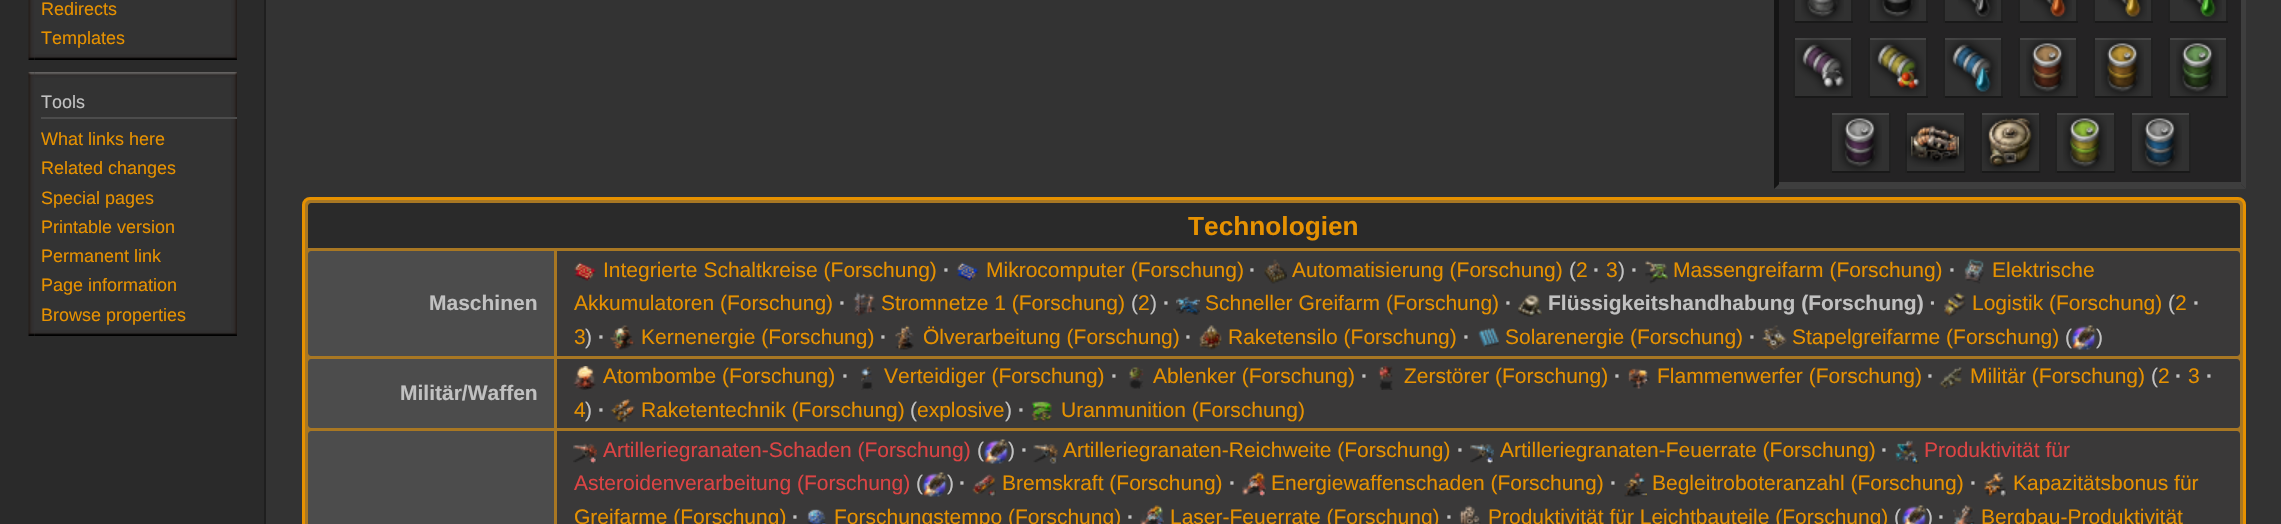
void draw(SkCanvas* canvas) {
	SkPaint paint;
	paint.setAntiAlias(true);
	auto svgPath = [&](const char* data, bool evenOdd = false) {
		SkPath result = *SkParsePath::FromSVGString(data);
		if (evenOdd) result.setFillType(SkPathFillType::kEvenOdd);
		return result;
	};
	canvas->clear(0xff2a2a2a);
	paint.setColor(0xff333333);
	canvas->drawRect(SkRect::MakeXYWH(34, 0, 197, 60), paint);
	canvas->drawImageRect(SkImages::DeferredFromEncodedData(SkData::MakeFromFileName("img1.png")), SkRect::MakeXYWH(28, 0, 209, 60), SkSamplingOptions());
	SkFont f1(fontMgr->matchFamilyStyle("Liberation Sans", SkFontStyle::Normal()), 18);
	f1.setSubpixel(true);
	paint.setColor(0xffe69100);
	canvas->drawString("Redirects", 41, 15, f1, paint);
	canvas->drawString("Templates", 41, 44, f1, paint);
	paint.setColor(0xff333333);
	canvas->drawRect(SkRect::MakeXYWH(34, 72, 197, 264), paint);
	canvas->drawImageRect(SkImages::DeferredFromEncodedData(SkData::MakeFromFileName("img2.png")), SkRect::MakeXYWH(28, 72, 209, 264), SkSamplingOptions());
	paint.setColor(0xff4c4c4c);
	canvas->drawRect(SkRect::MakeXYWH(41, 117, 196, 2), paint);
	paint.setColor(0xffc1c1c1);
	canvas->drawString("Tools", 41, 108, f1, paint);
	paint.setColor(0xffe69100);
	canvas->drawString("What links here", 41, 145, f1, paint);
	canvas->drawString("Related changes", 41, 174, f1, paint);
	canvas->drawString("Special pages", 41, 204, f1, paint);
	canvas->drawString("Printable version", 41, 233, f1, paint);
	canvas->drawString("Permanent link", 41, 262, f1, paint);
	canvas->drawString("Page information", 41, 291, f1, paint);
	canvas->drawString("Browse properties", 41, 321, f1, paint);
	paint.setColor(0xff333333);
	canvas->drawRect(SkRect::MakeXYWH(266, 0, 2015, 524), paint);
	paint.setColor(0xff1f1f1f);
	canvas->drawRect(SkRect::MakeXYWH(264, 0, 2, 524), paint);
	paint.setColor(0xff242324);
	canvas->drawRect(SkRect::MakeXYWH(1775, 0, 471, 189), paint);
	paint.setColor(0xff3e3e3e);
	canvas->drawPath(svgPath("M2246-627V189L2241 184V-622Z"), paint);
	canvas->drawPath(svgPath("M2246 189H1774L1779 184H2241Z"), paint);
	paint.setColor(0xff141414);
	canvas->drawPath(svgPath("M1774 189V-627L1779-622V184Z"), paint);
	paint.setColor(0xff3e3e3e);
	canvas->drawRect(SkRect::MakeXYWH(1779, 182, 462, 2), paint);
	paint.setColor(0xff313131);
	canvas->drawRect(SkRect::MakeXYWH(1795, 0, 56, 21), paint);
	paint.setColor(0xff212121);
	canvas->drawRect(SkRect::MakeXYWH(1851, 0, 2, 23), paint);
	paint.setColor(0xff191919);
	canvas->drawRect(SkRect::MakeXYWH(1793, 21, 60, 2), paint);
	paint.setColor(0xff212121);
	canvas->drawRect(SkRect::MakeXYWH(1793, 0, 2, 23), paint);
	canvas->drawImageRect(SkImages::DeferredFromEncodedData(SkData::MakeFromFileName("img3.png")), SkRect::MakeXYWH(1801, 0, 43, 21), SkSamplingOptions());
	paint.setColor(0xff313131);
	canvas->drawRect(SkRect::MakeXYWH(1870, 0, 56, 21), paint);
	paint.setColor(0xff212121);
	canvas->drawRect(SkRect::MakeXYWH(1926, 0, 2, 23), paint);
	paint.setColor(0xff191919);
	canvas->drawRect(SkRect::MakeXYWH(1868, 21, 60, 2), paint);
	paint.setColor(0xff212121);
	canvas->drawRect(SkRect::MakeXYWH(1868, 0, 2, 23), paint);
	canvas->drawImageRect(SkImages::DeferredFromEncodedData(SkData::MakeFromFileName("img4.png")), SkRect::MakeXYWH(1876, 0, 43, 21), SkSamplingOptions());
	paint.setColor(0xff313131);
	canvas->drawRect(SkRect::MakeXYWH(1945, 0, 56, 21), paint);
	paint.setColor(0xff212121);
	canvas->drawRect(SkRect::MakeXYWH(2001, 0, 2, 23), paint);
	paint.setColor(0xff191919);
	canvas->drawRect(SkRect::MakeXYWH(1943, 21, 60, 2), paint);
	paint.setColor(0xff212121);
	canvas->drawRect(SkRect::MakeXYWH(1943, 0, 2, 23), paint);
	canvas->drawImageRect(SkImages::DeferredFromEncodedData(SkData::MakeFromFileName("img5.png")), SkRect::MakeXYWH(1958, 0, 39, 21), SkSamplingOptions());
	paint.setColor(0xff313131);
	canvas->drawRect(SkRect::MakeXYWH(2020, 0, 56, 21), paint);
	paint.setColor(0xff212121);
	canvas->drawRect(SkRect::MakeXYWH(2076, 0, 2, 23), paint);
	paint.setColor(0xff191919);
	canvas->drawRect(SkRect::MakeXYWH(2018, 21, 60, 2), paint);
	paint.setColor(0xff212121);
	canvas->drawRect(SkRect::MakeXYWH(2018, 0, 2, 23), paint);
	canvas->drawImageRect(SkImages::DeferredFromEncodedData(SkData::MakeFromFileName("img6.png")), SkRect::MakeXYWH(2033, 0, 39, 21), SkSamplingOptions());
	paint.setColor(0xff313131);
	canvas->drawRect(SkRect::MakeXYWH(2095, 0, 56, 21), paint);
	paint.setColor(0xff212121);
	canvas->drawRect(SkRect::MakeXYWH(2151, 0, 2, 23), paint);
	paint.setColor(0xff191919);
	canvas->drawRect(SkRect::MakeXYWH(2093, 21, 60, 2), paint);
	paint.setColor(0xff212121);
	canvas->drawRect(SkRect::MakeXYWH(2093, 0, 2, 23), paint);
	canvas->drawImageRect(SkImages::DeferredFromEncodedData(SkData::MakeFromFileName("img7.png")), SkRect::MakeXYWH(2108, 0, 39, 21), SkSamplingOptions());
	paint.setColor(0xff313131);
	canvas->drawRect(SkRect::MakeXYWH(2170, 0, 56, 21), paint);
	paint.setColor(0xff212121);
	canvas->drawRect(SkRect::MakeXYWH(2226, 0, 2, 23), paint);
	paint.setColor(0xff191919);
	canvas->drawRect(SkRect::MakeXYWH(2168, 21, 60, 2), paint);
	paint.setColor(0xff212121);
	canvas->drawRect(SkRect::MakeXYWH(2168, 0, 2, 23), paint);
	canvas->drawImageRect(SkImages::DeferredFromEncodedData(SkData::MakeFromFileName("img8.png")), SkRect::MakeXYWH(2183, 0, 39, 21), SkSamplingOptions());
	paint.setColor(0xff313131);
	canvas->drawRect(SkRect::MakeXYWH(1795, 40, 56, 56), paint);
	paint.setColor(0xff454545);
	canvas->drawRect(SkRect::MakeXYWH(1793, 38, 60, 2), paint);
	paint.setColor(0xff212121);
	canvas->drawRect(SkRect::MakeXYWH(1851, 38, 2, 60), paint);
	paint.setColor(0xff191919);
	canvas->drawRect(SkRect::MakeXYWH(1793, 96, 60, 2), paint);
	paint.setColor(0xff212121);
	canvas->drawRect(SkRect::MakeXYWH(1793, 38, 2, 60), paint);
	canvas->drawImageRect(SkImages::DeferredFromEncodedData(SkData::MakeFromFileName("img9.png")), SkRect::MakeXYWH(1797, 38, 53, 56), SkSamplingOptions());
	paint.setColor(0xff313131);
	canvas->drawRect(SkRect::MakeXYWH(1870, 40, 56, 56), paint);
	paint.setColor(0xff454545);
	canvas->drawRect(SkRect::MakeXYWH(1868, 38, 60, 2), paint);
	paint.setColor(0xff212121);
	canvas->drawRect(SkRect::MakeXYWH(1926, 38, 2, 60), paint);
	paint.setColor(0xff191919);
	canvas->drawRect(SkRect::MakeXYWH(1868, 96, 60, 2), paint);
	paint.setColor(0xff212121);
	canvas->drawRect(SkRect::MakeXYWH(1868, 38, 2, 60), paint);
	canvas->drawImageRect(SkImages::DeferredFromEncodedData(SkData::MakeFromFileName("img10.png")), SkRect::MakeXYWH(1872, 38, 52, 57), SkSamplingOptions());
	paint.setColor(0xff313131);
	canvas->drawRect(SkRect::MakeXYWH(1945, 40, 56, 56), paint);
	paint.setColor(0xff454545);
	canvas->drawRect(SkRect::MakeXYWH(1943, 38, 60, 2), paint);
	paint.setColor(0xff212121);
	canvas->drawRect(SkRect::MakeXYWH(2001, 38, 2, 60), paint);
	paint.setColor(0xff191919);
	canvas->drawRect(SkRect::MakeXYWH(1943, 96, 60, 2), paint);
	paint.setColor(0xff212121);
	canvas->drawRect(SkRect::MakeXYWH(1943, 38, 2, 60), paint);
	canvas->drawImageRect(SkImages::DeferredFromEncodedData(SkData::MakeFromFileName("img11.png")), SkRect::MakeXYWH(1947, 38, 51, 58), SkSamplingOptions());
	paint.setColor(0xff313131);
	canvas->drawRect(SkRect::MakeXYWH(2020, 40, 56, 56), paint);
	paint.setColor(0xff454545);
	canvas->drawRect(SkRect::MakeXYWH(2018, 38, 60, 2), paint);
	paint.setColor(0xff212121);
	canvas->drawRect(SkRect::MakeXYWH(2076, 38, 2, 60), paint);
	paint.setColor(0xff191919);
	canvas->drawRect(SkRect::MakeXYWH(2018, 96, 60, 2), paint);
	paint.setColor(0xff212121);
	canvas->drawRect(SkRect::MakeXYWH(2018, 38, 2, 60), paint);
	canvas->drawImageRect(SkImages::DeferredFromEncodedData(SkData::MakeFromFileName("img12.png")), SkRect::MakeXYWH(2026, 38, 43, 58), SkSamplingOptions());
	paint.setColor(0xff313131);
	canvas->drawRect(SkRect::MakeXYWH(2095, 40, 56, 56), paint);
	paint.setColor(0xff454545);
	canvas->drawRect(SkRect::MakeXYWH(2093, 38, 60, 2), paint);
	paint.setColor(0xff212121);
	canvas->drawRect(SkRect::MakeXYWH(2151, 38, 2, 60), paint);
	paint.setColor(0xff191919);
	canvas->drawRect(SkRect::MakeXYWH(2093, 96, 60, 2), paint);
	paint.setColor(0xff212121);
	canvas->drawRect(SkRect::MakeXYWH(2093, 38, 2, 60), paint);
	canvas->drawImageRect(SkImages::DeferredFromEncodedData(SkData::MakeFromFileName("img13.png")), SkRect::MakeXYWH(2101, 38, 43, 58), SkSamplingOptions());
	paint.setColor(0xff313131);
	canvas->drawRect(SkRect::MakeXYWH(2170, 40, 56, 56), paint);
	paint.setColor(0xff454545);
	canvas->drawRect(SkRect::MakeXYWH(2168, 38, 60, 2), paint);
	paint.setColor(0xff212121);
	canvas->drawRect(SkRect::MakeXYWH(2226, 38, 2, 60), paint);
	paint.setColor(0xff191919);
	canvas->drawRect(SkRect::MakeXYWH(2168, 96, 60, 2), paint);
	paint.setColor(0xff212121);
	canvas->drawRect(SkRect::MakeXYWH(2168, 38, 2, 60), paint);
	canvas->drawImageRect(SkImages::DeferredFromEncodedData(SkData::MakeFromFileName("img14.png")), SkRect::MakeXYWH(2176, 38, 43, 58), SkSamplingOptions());
	paint.setColor(0xff313131);
	canvas->drawRect(SkRect::MakeXYWH(1832, 115, 57, 56), paint);
	paint.setColor(0xff454545);
	canvas->drawRect(SkRect::MakeXYWH(1830, 113, 60, 2), paint);
	paint.setColor(0xff212121);
	canvas->drawRect(SkRect::MakeXYWH(1889, 113, 2, 60), paint);
	paint.setColor(0xff191919);
	canvas->drawRect(SkRect::MakeXYWH(1830, 171, 60, 2), paint);
	paint.setColor(0xff212121);
	canvas->drawRect(SkRect::MakeXYWH(1830, 113, 2, 60), paint);
	canvas->drawImageRect(SkImages::DeferredFromEncodedData(SkData::MakeFromFileName("img15.png")), SkRect::MakeXYWH(1838, 113, 44, 58), SkSamplingOptions());
	paint.setColor(0xff313131);
	canvas->drawRect(SkRect::MakeXYWH(1907, 115, 57, 56), paint);
	paint.setColor(0xff454545);
	canvas->drawRect(SkRect::MakeXYWH(1905, 113, 60, 2), paint);
	paint.setColor(0xff212121);
	canvas->drawRect(SkRect::MakeXYWH(1964, 113, 2, 60), paint);
	paint.setColor(0xff191919);
	canvas->drawRect(SkRect::MakeXYWH(1905, 171, 60, 2), paint);
	paint.setColor(0xff212121);
	canvas->drawRect(SkRect::MakeXYWH(1905, 113, 2, 60), paint);
	canvas->drawImageRect(SkImages::DeferredFromEncodedData(SkData::MakeFromFileName("img16.png")), SkRect::MakeXYWH(1905, 120, 60, 47), SkSamplingOptions());
	paint.setColor(0xff313131);
	canvas->drawRect(SkRect::MakeXYWH(1982, 115, 57, 56), paint);
	paint.setColor(0xff454545);
	canvas->drawRect(SkRect::MakeXYWH(1980, 113, 60, 2), paint);
	paint.setColor(0xff212121);
	canvas->drawRect(SkRect::MakeXYWH(2039, 113, 2, 60), paint);
	paint.setColor(0xff191919);
	canvas->drawRect(SkRect::MakeXYWH(1980, 171, 60, 2), paint);
	paint.setColor(0xff212121);
	canvas->drawRect(SkRect::MakeXYWH(1980, 113, 2, 60), paint);
	canvas->drawImageRect(SkImages::DeferredFromEncodedData(SkData::MakeFromFileName("img17.png")), SkRect::MakeXYWH(1982, 113, 56, 58), SkSamplingOptions());
	paint.setColor(0xff313131);
	canvas->drawRect(SkRect::MakeXYWH(2057, 115, 57, 56), paint);
	paint.setColor(0xff454545);
	canvas->drawRect(SkRect::MakeXYWH(2055, 113, 60, 2), paint);
	paint.setColor(0xff212121);
	canvas->drawRect(SkRect::MakeXYWH(2114, 113, 2, 60), paint);
	paint.setColor(0xff191919);
	canvas->drawRect(SkRect::MakeXYWH(2055, 171, 60, 2), paint);
	paint.setColor(0xff212121);
	canvas->drawRect(SkRect::MakeXYWH(2055, 113, 2, 60), paint);
	canvas->drawImageRect(SkImages::DeferredFromEncodedData(SkData::MakeFromFileName("img18.png")), SkRect::MakeXYWH(2063, 113, 44, 58), SkSamplingOptions());
	paint.setColor(0xff313131);
	canvas->drawRect(SkRect::MakeXYWH(2132, 115, 57, 56), paint);
	paint.setColor(0xff454545);
	canvas->drawRect(SkRect::MakeXYWH(2130, 113, 60, 2), paint);
	paint.setColor(0xff212121);
	canvas->drawRect(SkRect::MakeXYWH(2189, 113, 2, 60), paint);
	paint.setColor(0xff191919);
	canvas->drawRect(SkRect::MakeXYWH(2130, 171, 60, 2), paint);
	paint.setColor(0xff212121);
	canvas->drawRect(SkRect::MakeXYWH(2130, 113, 2, 60), paint);
	canvas->drawImageRect(SkImages::DeferredFromEncodedData(SkData::MakeFromFileName("img19.png")), SkRect::MakeXYWH(2138, 113, 44, 58), SkSamplingOptions());
	paint.setColor(0xffa87723);
	canvas->drawRoundRect(SkRect::MakeXYWH(303.5, 198.5, 1941, 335), 6.5, 6.5, paint);
	paint.setStroke(true);
	paint.setStrokeWidth(3);
	paint.setColor(0xffe69100);
	canvas->drawRoundRect(SkRect::MakeXYWH(303.5, 198.5, 1941, 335), 6.5, 6.5, paint);
	paint.setStroke(false);
	paint.setColor(0xff2a2a2a);
	canvas->drawPath(svgPath("M311 203H2237C2238.5 203 2240 204.5 2240 206V248H308V206C308 204.5 309.5 203 311 203Z"), paint);
	SkFont f2(fontMgr->matchFamilyStyle("Liberation Sans", SkFontStyle::Bold()), 26.25);
	f2.setSubpixel(true);
	paint.setColor(0xffe69100);
	canvas->drawString("Technologien", 1188, 235, f2, paint);
	paint.setColor(0xff4c4c4c);
	canvas->drawPath(svgPath("M311 251H554V356H311C309.5 356 308 354.5 308 353V254C308 252.5 309.5 251 311 251Z"), paint);
	SkFont f3(fontMgr->matchFamilyStyle("Liberation Sans", SkFontStyle::Bold()), 21);
	f3.setSubpixel(true);
	paint.setColor(0xffc1c1c1);
	canvas->drawString("Maschinen", 429, 310, f3, paint);
	paint.setColor(0xff3a3939);
	canvas->drawPath(svgPath("M557 251H2237C2238.5 251 2240 252.5 2240 254V353C2240 354.5 2238.5 356 2237 356H557Z"), paint);
	canvas->drawImageRect(SkImages::DeferredFromEncodedData(SkData::MakeFromFileName("img20.png")), SkRect::MakeXYWH(574, 262, 22, 19), SkSamplingOptions());
	SkFont f4(fontMgr->matchFamilyStyle("Liberation Sans", SkFontStyle::Normal()), 21);
	f4.setSubpixel(true);
	paint.setColor(0xffe69100);
	canvas->drawString("Integrierte Schaltkreise (Forschung)", 603, 277, f4, paint);
	paint.setColor(0xffc1c1c1);
	canvas->drawString("·", 943, 277, f3, paint);
	canvas->drawImageRect(SkImages::DeferredFromEncodedData(SkData::MakeFromFileName("img21.png")), SkRect::MakeXYWH(956, 262, 23, 19), SkSamplingOptions());
	paint.setColor(0xffe69100);
	canvas->drawString("Mikrocomputer (Forschung)", 986, 277, f4, paint);
	paint.setColor(0xffc1c1c1);
	canvas->drawString("·", 1249, 277, f3, paint);
	canvas->drawImageRect(SkImages::DeferredFromEncodedData(SkData::MakeFromFileName("img22.png")), SkRect::MakeXYWH(1264, 259, 23, 25), SkSamplingOptions());
	paint.setColor(0xffe69100);
	canvas->drawString("Automatisierung (Forschung)", 1292, 277, f4, paint);
	paint.setColor(0xffc1c1c1);
	canvas->drawString("(", 1569, 277, f4, paint);
	paint.setColor(0xffe69100);
	canvas->drawString("2", 1576, 277, f4, paint);
	paint.setColor(0xffc1c1c1);
	canvas->drawString("·", 1593, 277, f3, paint);
	paint.setColor(0xffe69100);
	canvas->drawString("3", 1606, 277, f4, paint);
	paint.setColor(0xffc1c1c1);
	canvas->drawString(")", 1618, 277, f4, paint);
	canvas->drawString("·", 1631, 277, f3, paint);
	canvas->drawImageRect(SkImages::DeferredFromEncodedData(SkData::MakeFromFileName("img23.png")), SkRect::MakeXYWH(1645, 260, 23, 24), SkSamplingOptions());
	paint.setColor(0xffe69100);
	canvas->drawString("Massengreifarm (Forschung)", 1673, 277, f4, paint);
	paint.setColor(0xffc1c1c1);
	canvas->drawString("·", 1949, 277, f3, paint);
	canvas->drawImageRect(SkImages::DeferredFromEncodedData(SkData::MakeFromFileName("img24.png")), SkRect::MakeXYWH(1964, 259, 20, 25), SkSamplingOptions());
	paint.setColor(0xffe69100);
	canvas->drawString("Elektrische", 1992, 277, f4, paint);
	canvas->drawString("Akkumulatoren (Forschung)", 574, 310, f4, paint);
	paint.setColor(0xffc1c1c1);
	canvas->drawString("·", 839, 310, f3, paint);
	canvas->drawImageRect(SkImages::DeferredFromEncodedData(SkData::MakeFromFileName("img25.png")), SkRect::MakeXYWH(853, 292, 23, 24), SkSamplingOptions());
	paint.setColor(0xffe69100);
	canvas->drawString("Stromnetze 1 (Forschung)", 881, 310, f4, paint);
	paint.setColor(0xffc1c1c1);
	canvas->drawString("(", 1131, 310, f4, paint);
	paint.setColor(0xffe69100);
	canvas->drawString("2", 1138, 310, f4, paint);
	paint.setColor(0xffc1c1c1);
	canvas->drawString(")", 1150, 310, f4, paint);
	canvas->drawString("·", 1163, 310, f3, paint);
	canvas->drawImageRect(SkImages::DeferredFromEncodedData(SkData::MakeFromFileName("img26.png")), SkRect::MakeXYWH(1176, 296, 24, 19), SkSamplingOptions());
	paint.setColor(0xffe69100);
	canvas->drawString("Schneller Greifarm (Forschung)", 1205, 310, f4, paint);
	paint.setColor(0xffc1c1c1);
	canvas->drawString("·", 1505, 310, f3, paint);
	canvas->drawImageRect(SkImages::DeferredFromEncodedData(SkData::MakeFromFileName("img27.png")), SkRect::MakeXYWH(1518, 294, 24, 23), SkSamplingOptions());
	canvas->drawString("Flüssigkeitshandhabung (Forschung) ·", 1548, 310, f3, paint);
	canvas->drawImageRect(SkImages::DeferredFromEncodedData(SkData::MakeFromFileName("img28.png")), SkRect::MakeXYWH(1944, 292, 22, 25), SkSamplingOptions());
	paint.setColor(0xffe69100);
	canvas->drawString("Logistik (Forschung)", 1972, 310, f4, paint);
	paint.setColor(0xffc1c1c1);
	canvas->drawString("(", 2168, 310, f4, paint);
	paint.setColor(0xffe69100);
	canvas->drawString("2", 2175, 310, f4, paint);
	paint.setColor(0xffc1c1c1);
	canvas->drawString("·", 2193, 310, f3, paint);
	paint.setColor(0xffe69100);
	canvas->drawString("3", 574, 344, f4, paint);
	paint.setColor(0xffc1c1c1);
	canvas->drawString(")", 585, 344, f4, paint);
	canvas->drawString("·", 598, 344, f3, paint);
	canvas->drawImageRect(SkImages::DeferredFromEncodedData(SkData::MakeFromFileName("img29.png")), SkRect::MakeXYWH(610, 325, 25, 25), SkSamplingOptions());
	paint.setColor(0xffe69100);
	canvas->drawString("Kernenergie (Forschung)", 641, 344, f4, paint);
	paint.setColor(0xffc1c1c1);
	canvas->drawString("·", 880, 344, f3, paint);
	canvas->drawImageRect(SkImages::DeferredFromEncodedData(SkData::MakeFromFileName("img30.png")), SkRect::MakeXYWH(895, 325, 19, 25), SkSamplingOptions());
	paint.setColor(0xffe69100);
	canvas->drawString("Ölverarbeitung (Forschung)", 923, 344, f4, paint);
	paint.setColor(0xffc1c1c1);
	canvas->drawString("·", 1185, 344, f3, paint);
	canvas->drawImageRect(SkImages::DeferredFromEncodedData(SkData::MakeFromFileName("img31.png")), SkRect::MakeXYWH(1199, 325, 23, 25), SkSamplingOptions());
	paint.setColor(0xffe69100);
	canvas->drawString("Raketensilo (Forschung)", 1228, 344, f4, paint);
	paint.setColor(0xffc1c1c1);
	canvas->drawString("·", 1463, 344, f3, paint);
	canvas->drawImageRect(SkImages::DeferredFromEncodedData(SkData::MakeFromFileName("img32.png")), SkRect::MakeXYWH(1478, 328, 21, 19), SkSamplingOptions());
	paint.setColor(0xffe69100);
	canvas->drawString("Solarenergie (Forschung)", 1505, 344, f4, paint);
	paint.setColor(0xffc1c1c1);
	canvas->drawString("·", 1749, 344, f3, paint);
	canvas->drawImageRect(SkImages::DeferredFromEncodedData(SkData::MakeFromFileName("img33.png")), SkRect::MakeXYWH(1762, 325, 25, 25), SkSamplingOptions());
	paint.setColor(0xffe69100);
	canvas->drawString("Stapelgreifarme (Forschung)", 1792, 344, f4, paint);
	paint.setColor(0xffc1c1c1);
	canvas->drawString("(", 2065, 344, f4, paint);
	canvas->drawImageRect(SkImages::DeferredFromEncodedData(SkData::MakeFromFileName("img34.png")), SkRect::MakeXYWH(2071, 325, 25, 25), SkSamplingOptions());
	canvas->drawString(")", 2096, 344, f4, paint);
	paint.setColor(0xff4c4c4c);
	canvas->drawPath(svgPath("M311 359H554V428H311C309.5 428 308 426.5 308 425V362C308 360.5 309.5 359 311 359Z"), paint);
	paint.setColor(0xffc1c1c1);
	canvas->drawString("Militär/Waffen", 400, 400, f3, paint);
	paint.setColor(0xff3a3939);
	canvas->drawPath(svgPath("M557 359H2237C2238.5 359 2240 360.5 2240 362V425C2240 426.5 2238.5 428 2237 428H557Z"), paint);
	canvas->drawImageRect(SkImages::DeferredFromEncodedData(SkData::MakeFromFileName("img35.png")), SkRect::MakeXYWH(573, 366, 23, 24), SkSamplingOptions());
	paint.setColor(0xffe69100);
	canvas->drawString("Atombombe (Forschung)", 603, 383, f4, paint);
	paint.setColor(0xffc1c1c1);
	canvas->drawString("·", 842, 383, f3, paint);
	canvas->drawImageRect(SkImages::DeferredFromEncodedData(SkData::MakeFromFileName("img36.png")), SkRect::MakeXYWH(861, 366, 12, 24), SkSamplingOptions());
	paint.setColor(0xffe69100);
	canvas->drawString("Verteidiger (Forschung)", 884, 383, f4, paint);
	paint.setColor(0xffc1c1c1);
	canvas->drawString("·", 1111, 383, f3, paint);
	canvas->drawImageRect(SkImages::DeferredFromEncodedData(SkData::MakeFromFileName("img37.png")), SkRect::MakeXYWH(1129, 367, 15, 22), SkSamplingOptions());
	paint.setColor(0xffe69100);
	canvas->drawString("Ablenker (Forschung)", 1153, 383, f4, paint);
	paint.setColor(0xffc1c1c1);
	canvas->drawString("·", 1361, 383, f3, paint);
	canvas->drawImageRect(SkImages::DeferredFromEncodedData(SkData::MakeFromFileName("img38.png")), SkRect::MakeXYWH(1378, 366, 15, 24), SkSamplingOptions());
	paint.setColor(0xffe69100);
	canvas->drawString("Zerstörer (Forschung)", 1404, 383, f4, paint);
	paint.setColor(0xffc1c1c1);
	canvas->drawString("·", 1614, 383, f3, paint);
	canvas->drawImageRect(SkImages::DeferredFromEncodedData(SkData::MakeFromFileName("img39.png")), SkRect::MakeXYWH(1628, 368, 22, 21), SkSamplingOptions());
	paint.setColor(0xffe69100);
	canvas->drawString("Flammenwerfer (Forschung)", 1657, 383, f4, paint);
	paint.setColor(0xffc1c1c1);
	canvas->drawString("·", 1927, 383, f3, paint);
	canvas->drawImageRect(SkImages::DeferredFromEncodedData(SkData::MakeFromFileName("img40.png")), SkRect::MakeXYWH(1939, 367, 23, 22), SkSamplingOptions());
	paint.setColor(0xffe69100);
	canvas->drawString("Militär (Forschung)", 1970, 383, f4, paint);
	paint.setColor(0xffc1c1c1);
	canvas->drawString("(", 2151, 383, f4, paint);
	paint.setColor(0xffe69100);
	canvas->drawString("2", 2158, 383, f4, paint);
	paint.setColor(0xffc1c1c1);
	canvas->drawString("·", 2175, 383, f3, paint);
	paint.setColor(0xffe69100);
	canvas->drawString("3", 2188, 383, f4, paint);
	paint.setColor(0xffc1c1c1);
	canvas->drawString("·", 2206, 383, f3, paint);
	paint.setColor(0xffe69100);
	canvas->drawString("4", 574, 417, f4, paint);
	paint.setColor(0xffc1c1c1);
	canvas->drawString(")", 585, 417, f4, paint);
	canvas->drawString("·", 598, 417, f3, paint);
	canvas->drawImageRect(SkImages::DeferredFromEncodedData(SkData::MakeFromFileName("img41.png")), SkRect::MakeXYWH(610, 399, 25, 24), SkSamplingOptions());
	paint.setColor(0xffe69100);
	canvas->drawString("Raketentechnik (Forschung)", 641, 417, f4, paint);
	paint.setColor(0xffc1c1c1);
	canvas->drawString("(", 910, 417, f4, paint);
	paint.setColor(0xffe69100);
	canvas->drawString("explosive", 917, 417, f4, paint);
	paint.setColor(0xffc1c1c1);
	canvas->drawString(")", 1005, 417, f4, paint);
	canvas->drawString("·", 1018, 417, f3, paint);
	canvas->drawImageRect(SkImages::DeferredFromEncodedData(SkData::MakeFromFileName("img42.png")), SkRect::MakeXYWH(1031, 401, 21, 21), SkSamplingOptions());
	paint.setColor(0xffe69100);
	canvas->drawString("Uranmunition (Forschung)", 1061, 417, f4, paint);
	paint.setColor(0xff4c4c4c);
	canvas->drawPath(svgPath("M311 431H554V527H311C309.5 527 308 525.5 308 524V434C308 432.5 309.5 431 311 431Z"), paint);
	paint.setColor(0xff3a3939);
	canvas->drawPath(svgPath("M557 431H2237C2238.5 431 2240 432.5 2240 434V524C2240 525.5 2238.5 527 2237 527H557Z"), paint);
	canvas->drawImageRect(SkImages::DeferredFromEncodedData(SkData::MakeFromFileName("img43.png")), SkRect::MakeXYWH(573, 443, 24, 21), SkSamplingOptions());
	paint.setColor(0xffdd4444);
	canvas->drawString("Artilleriegranaten-Schaden (Forschung)", 603, 457, f4, paint);
	paint.setColor(0xffc1c1c1);
	canvas->drawString("(", 977, 457, f4, paint);
	canvas->drawImageRect(SkImages::DeferredFromEncodedData(SkData::MakeFromFileName("img44.png")), SkRect::MakeXYWH(984, 439, 24, 25), SkSamplingOptions());
	canvas->drawString(")", 1008, 457, f4, paint);
	canvas->drawString("·", 1021, 457, f3, paint);
	canvas->drawImageRect(SkImages::DeferredFromEncodedData(SkData::MakeFromFileName("img45.png")), SkRect::MakeXYWH(1033, 444, 25, 20), SkSamplingOptions());
	paint.setColor(0xffe69100);
	canvas->drawString("Artilleriegranaten-Reichweite (Forschung)", 1063, 457, f4, paint);
	paint.setColor(0xffc1c1c1);
	canvas->drawString("·", 1457, 457, f3, paint);
	canvas->drawImageRect(SkImages::DeferredFromEncodedData(SkData::MakeFromFileName("img46.png")), SkRect::MakeXYWH(1470, 444, 24, 20), SkSamplingOptions());
	paint.setColor(0xffe69100);
	canvas->drawString("Artilleriegranaten-Feuerrate (Forschung)", 1500, 457, f4, paint);
	paint.setColor(0xffc1c1c1);
	canvas->drawString("·", 1881, 457, f3, paint);
	canvas->drawImageRect(SkImages::DeferredFromEncodedData(SkData::MakeFromFileName("img47.png")), SkRect::MakeXYWH(1895, 440, 24, 24), SkSamplingOptions());
	paint.setColor(0xffdd4444);
	canvas->drawString("Produktivität für", 1924, 457, f4, paint);
	canvas->drawString("Asteroidenverarbeitung (Forschung)", 574, 490, f4, paint);
	paint.setColor(0xffc1c1c1);
	canvas->drawString("(", 916, 490, f4, paint);
	canvas->drawImageRect(SkImages::DeferredFromEncodedData(SkData::MakeFromFileName("img48.png")), SkRect::MakeXYWH(922, 472, 25, 25), SkSamplingOptions());
	canvas->drawString(")", 947, 490, f4, paint);
	canvas->drawString("·", 959, 490, f3, paint);
	canvas->drawImageRect(SkImages::DeferredFromEncodedData(SkData::MakeFromFileName("img49.png")), SkRect::MakeXYWH(972, 474, 24, 23), SkSamplingOptions());
	paint.setColor(0xffe69100);
	canvas->drawString("Bremskraft (Forschung)", 1002, 490, f4, paint);
	paint.setColor(0xffc1c1c1);
	canvas->drawString("·", 1229, 490, f3, paint);
	canvas->drawImageRect(SkImages::DeferredFromEncodedData(SkData::MakeFromFileName("img50.png")), SkRect::MakeXYWH(1242, 472, 24, 25), SkSamplingOptions());
	paint.setColor(0xffe69100);
	canvas->drawString("Energiewaffenschaden (Forschung)", 1271, 490, f4, paint);
	paint.setColor(0xffc1c1c1);
	canvas->drawString("·", 1610, 490, f3, paint);
	canvas->drawImageRect(SkImages::DeferredFromEncodedData(SkData::MakeFromFileName("img51.png")), SkRect::MakeXYWH(1624, 472, 23, 25), SkSamplingOptions());
	paint.setColor(0xffe69100);
	canvas->drawString("Begleitroboteranzahl (Forschung)", 1652, 490, f4, paint);
	paint.setColor(0xffc1c1c1);
	canvas->drawString("·", 1970, 490, f3, paint);
	canvas->drawImageRect(SkImages::DeferredFromEncodedData(SkData::MakeFromFileName("img52.png")), SkRect::MakeXYWH(1984, 472, 23, 25), SkSamplingOptions());
	paint.setColor(0xffe69100);
	canvas->drawString("Kapazitätsbonus für", 2013, 490, f4, paint);
	canvas->drawString("Greifarme (Forschung)", 574, 524, f4, paint);
	paint.setColor(0xffc1c1c1);
	canvas->drawString("·", 792, 524, f3, paint);
	canvas->drawImageRect(SkImages::DeferredFromEncodedData(SkData::MakeFromFileName("img53.png")), SkRect::MakeXYWH(807, 509, 20, 15), SkSamplingOptions());
	paint.setColor(0xffe69100);
	canvas->drawString("Forschungstempo (Forschung)", 834, 524, f4, paint);
	paint.setColor(0xffc1c1c1);
	canvas->drawString("·", 1127, 524, f3, paint);
	canvas->drawImageRect(SkImages::DeferredFromEncodedData(SkData::MakeFromFileName("img54.png")), SkRect::MakeXYWH(1140, 505, 24, 19), SkSamplingOptions());
	paint.setColor(0xffe69100);
	canvas->drawString("Laser-Feuerrate (Forschung)", 1170, 524, f4, paint);
	paint.setColor(0xffc1c1c1);
	canvas->drawString("·", 1446, 524, f3, paint);
	canvas->drawImageRect(SkImages::DeferredFromEncodedData(SkData::MakeFromFileName("img55.png")), SkRect::MakeXYWH(1459, 505, 22, 19), SkSamplingOptions());
	paint.setColor(0xffe69100);
	canvas->drawString("Produktivität für Leichtbauteile (Forschung)", 1488, 524, f4, paint);
	paint.setColor(0xffc1c1c1);
	canvas->drawString("(", 1894, 524, f4, paint);
	canvas->drawImageRect(SkImages::DeferredFromEncodedData(SkData::MakeFromFileName("img56.png")), SkRect::MakeXYWH(1902, 505, 24, 19), SkSamplingOptions());
	canvas->drawString(")", 1926, 524, f4, paint);
	canvas->drawString("·", 1938, 524, f3, paint);
	canvas->drawImageRect(SkImages::DeferredFromEncodedData(SkData::MakeFromFileName("img57.png")), SkRect::MakeXYWH(1953, 505, 22, 19), SkSamplingOptions());
	paint.setColor(0xffe69100);
	canvas->drawString("Bergbau-Produktivität", 1981, 524, f4, paint);
}
